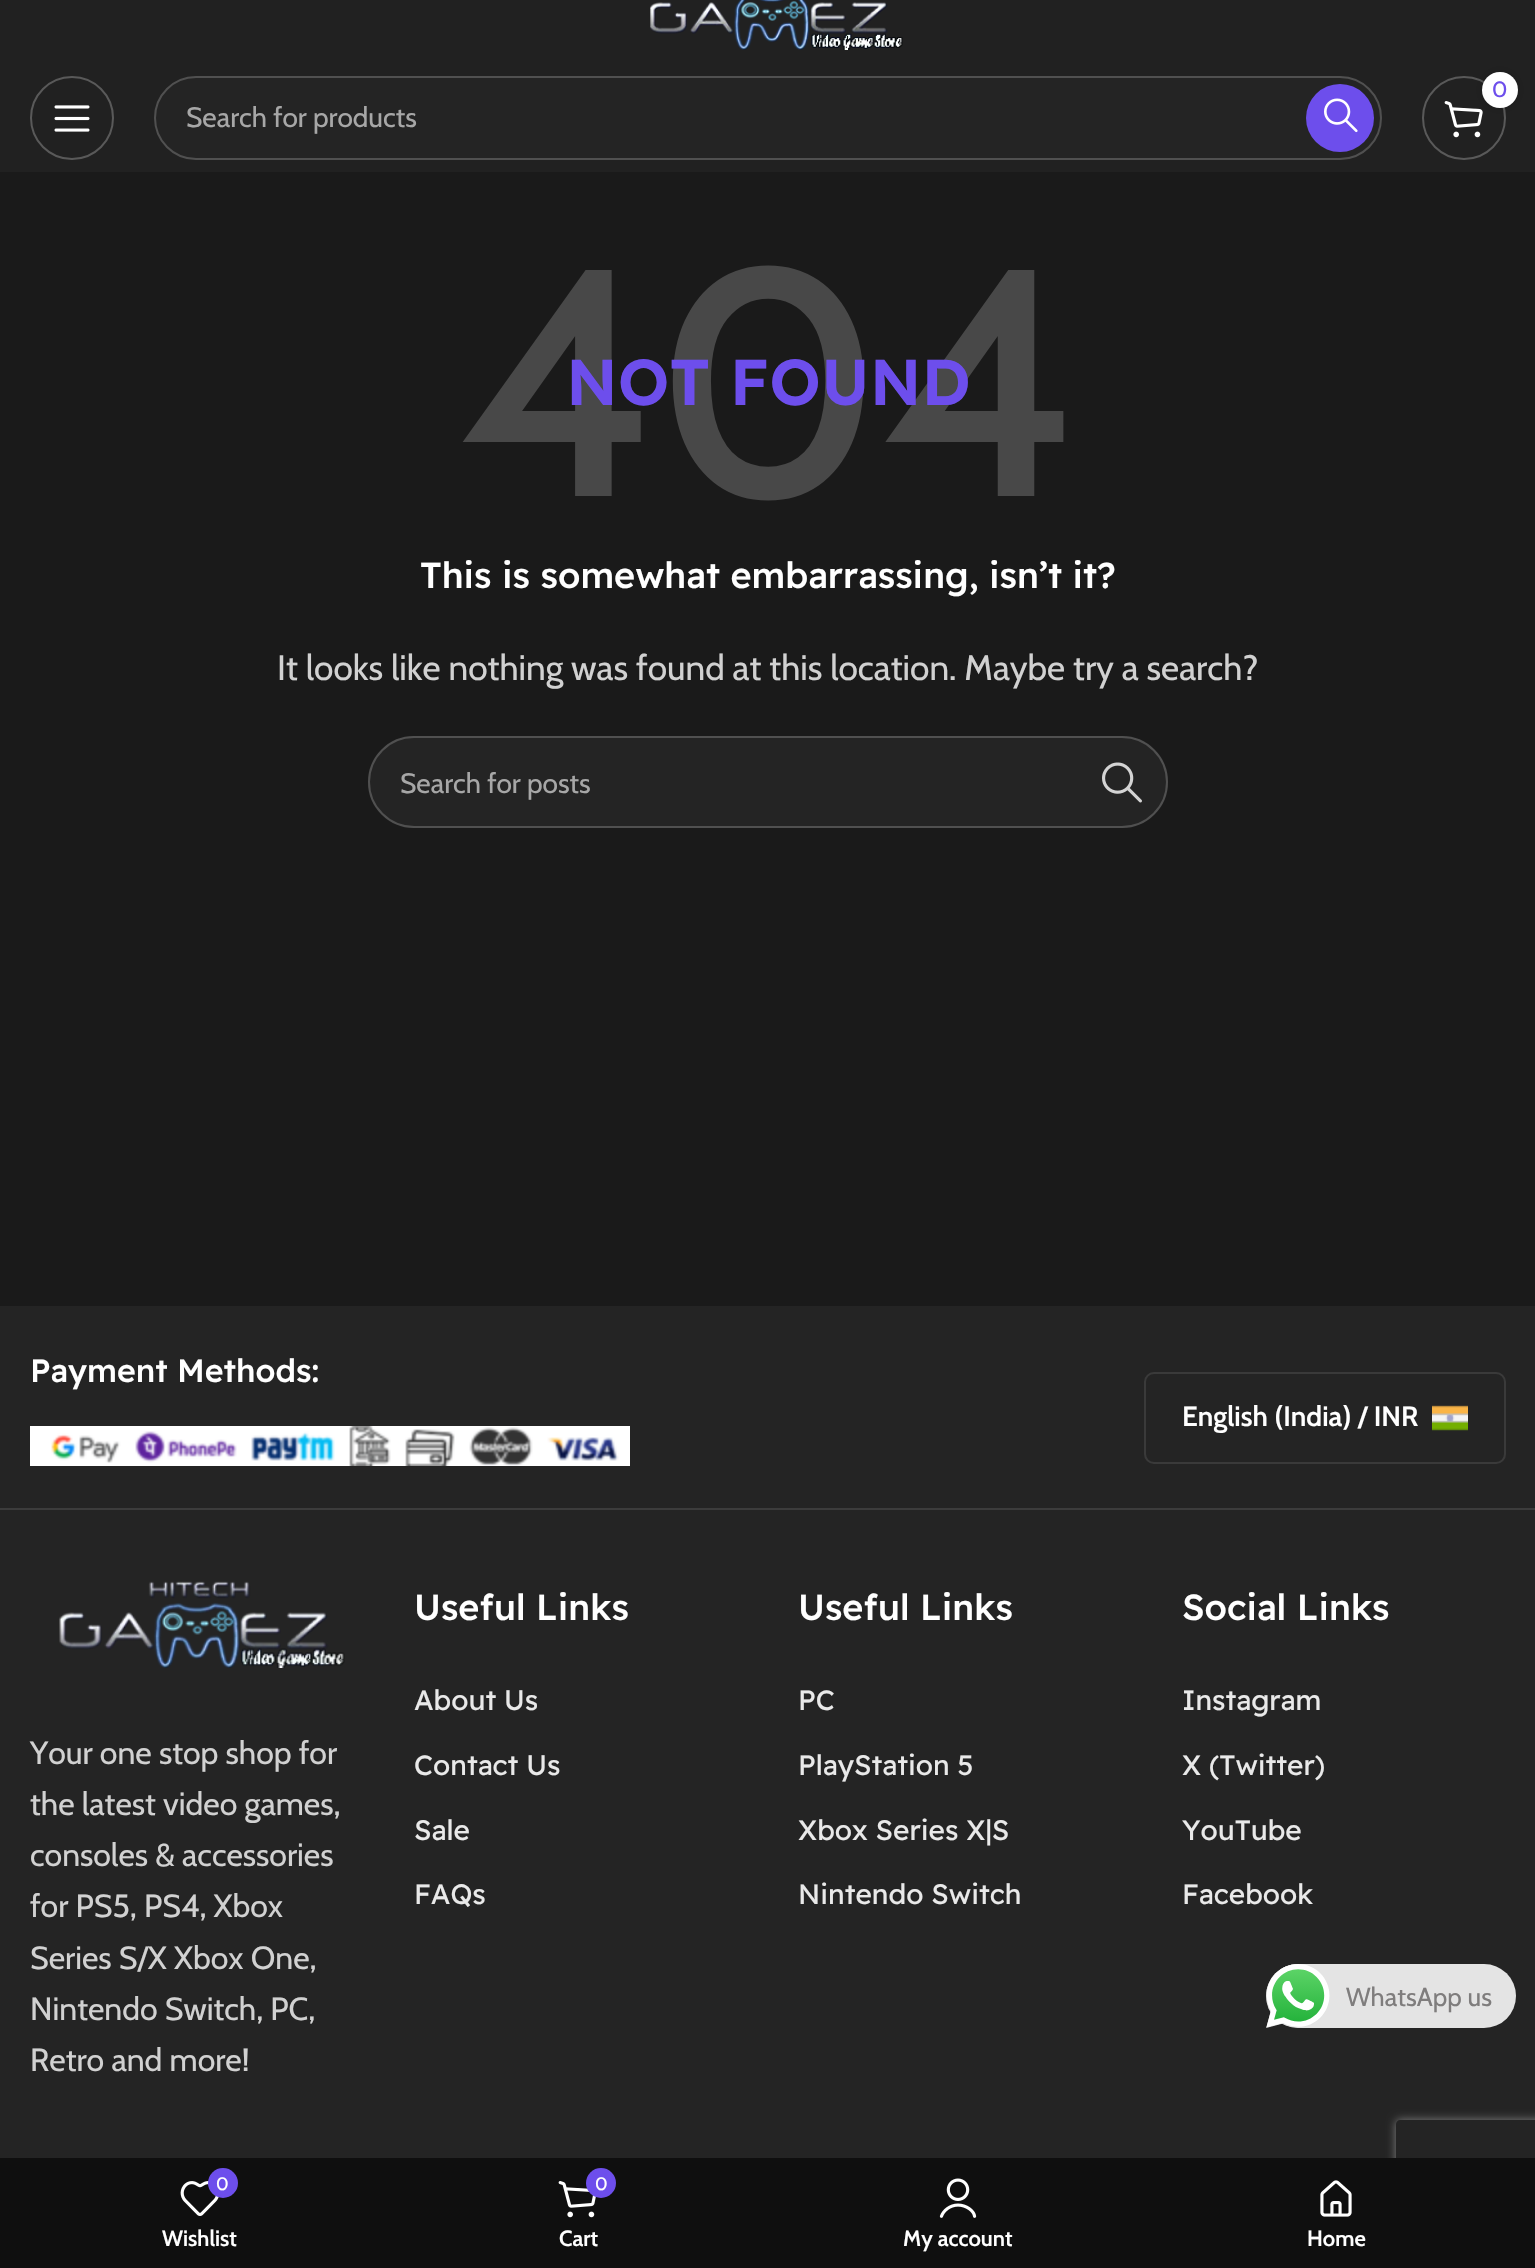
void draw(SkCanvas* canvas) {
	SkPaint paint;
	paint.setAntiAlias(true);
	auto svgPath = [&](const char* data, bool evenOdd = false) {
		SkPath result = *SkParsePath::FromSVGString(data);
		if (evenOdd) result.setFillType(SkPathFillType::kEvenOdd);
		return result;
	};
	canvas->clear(0xff1a1a1a);
	paint.setColor(0xff212121);
	canvas->drawRect(SkRect::MakeXYWH(0, 0, 1535, 172), paint);
	canvas->drawImageRect(SkImages::DeferredFromEncodedData(SkData::MakeFromFileName("img1.png")), SkRect::MakeXYWH(650, 0, 253, 50), SkSamplingOptions());
	paint.setStroke(true);
	paint.setStrokeWidth(2);
	paint.setColor(0xff595959);
	canvas->drawCircle(72, 118, 41, paint);
	canvas->drawImageRect(SkImages::DeferredFromEncodedData(SkData::MakeFromFileName("img2.png")), SkRect::MakeXYWH(54, 105, 36, 27), SkSamplingOptions());
	canvas->drawCircle(1464, 118, 41, paint);
	canvas->drawImageRect(SkImages::DeferredFromEncodedData(SkData::MakeFromFileName("img3.png")), SkRect::MakeXYWH(1444, 101, 39, 37), SkSamplingOptions());
	paint.setStroke(false);
	paint.setColor(0x2b000000);
	paint.setMaskFilter(SkMaskFilter::MakeBlur(kNormal_SkBlurStyle, 4));
	canvas->drawRoundRect(SkRect::MakeXYWH(1482, 72, 36, 36), 18, 18, paint);
	paint.setMaskFilter(nullptr);
	paint.setColor(0xffffffff);
	canvas->drawCircle(1500, 90, 18, paint);
	SkFont f1(fontMgr->matchFamilyStyle("Cabin", SkFontStyle::Normal()), 22);
	f1.setSubpixel(true);
	paint.setColor(0xff6d4eec);
	canvas->drawString("0", 1492, 97, f1, paint);
	paint.setColor(0xff242424);
	canvas->drawRoundRect(SkRect::MakeXYWH(155, 77, 1226, 82), 41, 41, paint);
	paint.setStroke(true);
	paint.setColor(0xff505050);
	canvas->drawRoundRect(SkRect::MakeXYWH(155, 77, 1226, 82), 41, 41, paint);
	SkFont f2(fontMgr->matchFamilyStyle("Cabin", SkFontStyle::Normal()), 28);
	f2.setSubpixel(true);
	paint.setStroke(false);
	paint.setColor(0xffa7a7a7);
	canvas->drawString("Search for products", 186, 127, f2, paint);
	paint.setColor(0xff6d4eec);
	canvas->drawCircle(1340, 118, 34, paint);
	canvas->drawImageRect(SkImages::DeferredFromEncodedData(SkData::MakeFromFileName("img4.png")), SkRect::MakeXYWH(1324, 98, 34, 35), SkSamplingOptions());
	SkFont f3(fontMgr->matchFamilyStyle("Cabin", SkFontStyle(600, SkFontStyle::kNormal_Width, SkFontStyle::kUpright_Slant)), 323);
	f3.setSubpixel(true);
	paint.setColor(0xff484848);
	canvas->drawString("404", 459, 496, f3, paint);
	SkFont f4(fontMgr->matchFamilyStyle("Readex Pro", SkFontStyle(600, SkFontStyle::kNormal_Width, SkFontStyle::kUpright_Slant)), 64.5);
	f4.setSubpixel(true);
	paint.setColor(0xff6d4eec);
	canvas->drawString("NOT FOUND", 566, 405, f4, paint);
	SkFont f5(fontMgr->matchFamilyStyle("Readex Pro", SkFontStyle(500, SkFontStyle::kNormal_Width, SkFontStyle::kUpright_Slant)), 36);
	f5.setSubpixel(true);
	paint.setColor(0xffffffff);
	canvas->drawString("This is somewhat embarrassing, isn’t it?", 420, 588, f5, paint);
	SkFont f6(fontMgr->matchFamilyStyle("Cabin", SkFontStyle::Normal()), 35.2);
	f6.setSubpixel(true);
	paint.setColor(0xffd1d1d1);
	canvas->drawString("It looks like nothing was found at this location. Maybe try a search?", 277, 680, f6, paint);
	paint.setColor(0xff242424);
	canvas->drawRoundRect(SkRect::MakeXYWH(368, 736, 800, 92), 46, 46, paint);
	paint.setStroke(true);
	paint.setColor(0x33ffffff);
	canvas->drawRoundRect(SkRect::MakeXYWH(369, 737, 798, 90), 45, 45, paint);
	paint.setStroke(false);
	paint.setColor(0xffa7a7a7);
	canvas->drawString("Search for posts", 400, 793, f2, paint);
	canvas->drawImageRect(SkImages::DeferredFromEncodedData(SkData::MakeFromFileName("img5.png")), SkRect::MakeXYWH(1102, 762, 40, 41), SkSamplingOptions());
	paint.setColor(0xff242424);
	canvas->drawRect(SkRect::MakeXYWH(0, 1306, 1535, 852), paint);
	paint.setColor(0xff3c3c3c);
	canvas->drawRect(SkRect::MakeXYWH(0, 1508, 1535, 2), paint);
	SkFont f7(fontMgr->matchFamilyStyle("Readex Pro", SkFontStyle(500, SkFontStyle::kNormal_Width, SkFontStyle::kUpright_Slant)), 32);
	f7.setSubpixel(true);
	paint.setColor(0xffffffff);
	canvas->drawString("Payment Methods:", 30, 1382, f7, paint);
	canvas->drawImageRect(SkImages::DeferredFromEncodedData(SkData::MakeFromFileName("img6.png")), SkRect::MakeXYWH(30, 1426, 600, 40), SkSamplingOptions());
	paint.setStroke(true);
	paint.setColor(0xff3a3a3a);
	canvas->drawRoundRect(SkRect::MakeXYWH(1145, 1373, 360, 90), 9, 9, paint);
	SkFont f8(fontMgr->matchFamilyStyle("Cabin", SkFontStyle(600, SkFontStyle::kNormal_Width, SkFontStyle::kUpright_Slant)), 28);
	f8.setSubpixel(true);
	paint.setStroke(false);
	paint.setColor(0xffffffff);
	canvas->drawString("English (India) / INR", 1182, 1426, f8, paint);
	canvas->drawImageRect(SkImages::DeferredFromEncodedData(SkData::MakeFromFileName("img7.png")), SkRect::MakeXYWH(1432, 1405, 36, 26), SkSamplingOptions());
	canvas->drawImageRect(SkImages::DeferredFromEncodedData(SkData::MakeFromFileName("img8.png")), SkRect::MakeXYWH(59, 1581, 286, 87), SkSamplingOptions());
	SkFont f9(fontMgr->matchFamilyStyle("Cabin", SkFontStyle::Normal()), 32);
	f9.setSubpixel(true);
	paint.setColor(0xffd1d1d1);
	canvas->drawString("Your one stop shop for", 30, 1764, f9, paint);
	canvas->drawString("the latest video games,", 30, 1815, f9, paint);
	canvas->drawString("consoles & accessories", 30, 1866, f9, paint);
	canvas->drawString("for PS5, PS4, Xbox", 30, 1917, f9, paint);
	canvas->drawString("Series S/X Xbox One,", 30, 1969, f9, paint);
	canvas->drawString("Nintendo Switch, PC,", 30, 2020, f9, paint);
	canvas->drawString("Retro and more!", 30, 2071, f9, paint);
	paint.setColor(0xffffffff);
	canvas->drawString("Useful Links", 414, 1620, f5, paint);
	SkFont f10(fontMgr->matchFamilyStyle("Readex Pro", SkFontStyle::Normal()), 28);
	f10.setSubpixel(true);
	paint.setColor(0xffe9e9e9);
	canvas->drawString("About Us", 414, 1710, f10, paint);
	canvas->drawString("Contact Us", 414, 1775, f10, paint);
	canvas->drawString("Sale", 414, 1840, f10, paint);
	canvas->drawString("FAQs", 414, 1904, f10, paint);
	paint.setColor(0xffffffff);
	canvas->drawString("Useful Links", 798, 1620, f5, paint);
	paint.setColor(0xffe9e9e9);
	canvas->drawString("PC", 798, 1710, f10, paint);
	canvas->drawString("PlayStation 5", 798, 1775, f10, paint);
	canvas->drawString("Xbox Series X|S", 798, 1840, f10, paint);
	canvas->drawString("Nintendo Switch", 798, 1904, f10, paint);
	paint.setColor(0xffffffff);
	canvas->drawString("Social Links", 1182, 1620, f5, paint);
	paint.setColor(0xffe9e9e9);
	canvas->drawString("Instagram", 1182, 1710, f10, paint);
	canvas->drawString("X (Twitter)", 1182, 1775, f10, paint);
	canvas->drawString("YouTube", 1182, 1840, f10, paint);
	canvas->drawString("Facebook", 1182, 1904, f10, paint);
	paint.setColor(0xffe4e4e4);
	canvas->drawRoundRect(SkRect::MakeXYWH(1266, 1964, 250, 64), 32, 32, paint);
	canvas->drawImageRect(SkImages::DeferredFromEncodedData(SkData::MakeFromFileName("img9.png")), SkRect::MakeXYWH(1266, 1964, 64, 64), SkSamplingOptions());
	SkFont f11(fontMgr->matchFamilyStyle("Cabin", SkFontStyle::Normal()), 26);
	f11.setSubpixel(true);
	paint.setColor(0xff7f7d7d);
	canvas->drawString("WhatsApp us", 1346, 2006, f11, paint);
	canvas->save();
	canvas->clipPath(svgPath("M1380 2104H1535V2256H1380ZM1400 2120H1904C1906 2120 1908 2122 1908 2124V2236C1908 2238 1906 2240 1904 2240H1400C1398 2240 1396 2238 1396 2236V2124C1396 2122 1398 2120 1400 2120Z", true), true);
	paint.setColor(0xff808080);
	paint.setMaskFilter(SkMaskFilter::MakeBlur(kNormal_SkBlurStyle, 5));
	canvas->drawRoundRect(SkRect::MakeXYWH(1396, 2120, 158, 120), 4, 4, paint);
	paint.setMaskFilter(nullptr);
	canvas->restore();
	paint.setColor(0xff0f0f0f);
	canvas->drawRect(SkRect::MakeXYWH(0, 2158, 1535, 110), paint);
	canvas->drawImageRect(SkImages::DeferredFromEncodedData(SkData::MakeFromFileName("img10.png")), SkRect::MakeXYWH(180, 2181, 39, 35), SkSamplingOptions());
	paint.setColor(0xff6d4eec);
	canvas->drawCircle(223, 2183, 15, paint);
	SkFont f12(fontMgr->matchFamilyStyle("Cabin", SkFontStyle::Normal()), 18);
	f12.setSubpixel(true);
	paint.setColor(0xffffffff);
	canvas->drawString("0", 216, 2190, f12, paint);
	SkFont f13(fontMgr->matchFamilyStyle("Cabin", SkFontStyle(600, SkFontStyle::kNormal_Width, SkFontStyle::kUpright_Slant)), 22);
	f13.setSubpixel(true);
	canvas->drawString("Wishlist", 162, 2246, f13, paint);
	canvas->drawImageRect(SkImages::DeferredFromEncodedData(SkData::MakeFromFileName("img11.png")), SkRect::MakeXYWH(558, 2181, 38, 37), SkSamplingOptions());
	paint.setColor(0xff6d4eec);
	canvas->drawCircle(601, 2183, 15, paint);
	paint.setColor(0xffffffff);
	canvas->drawString("0", 595, 2190, f12, paint);
	canvas->drawString("Cart", 559, 2246, f13, paint);
	canvas->drawImageRect(SkImages::DeferredFromEncodedData(SkData::MakeFromFileName("img12.png")), SkRect::MakeXYWH(939, 2178, 38, 40), SkSamplingOptions());
	canvas->drawString("My account", 903, 2246, f13, paint);
	canvas->drawImageRect(SkImages::DeferredFromEncodedData(SkData::MakeFromFileName("img13.png")), SkRect::MakeXYWH(1320, 2180, 32, 37), SkSamplingOptions());
	canvas->drawString("Home", 1307, 2246, f13, paint);
}
